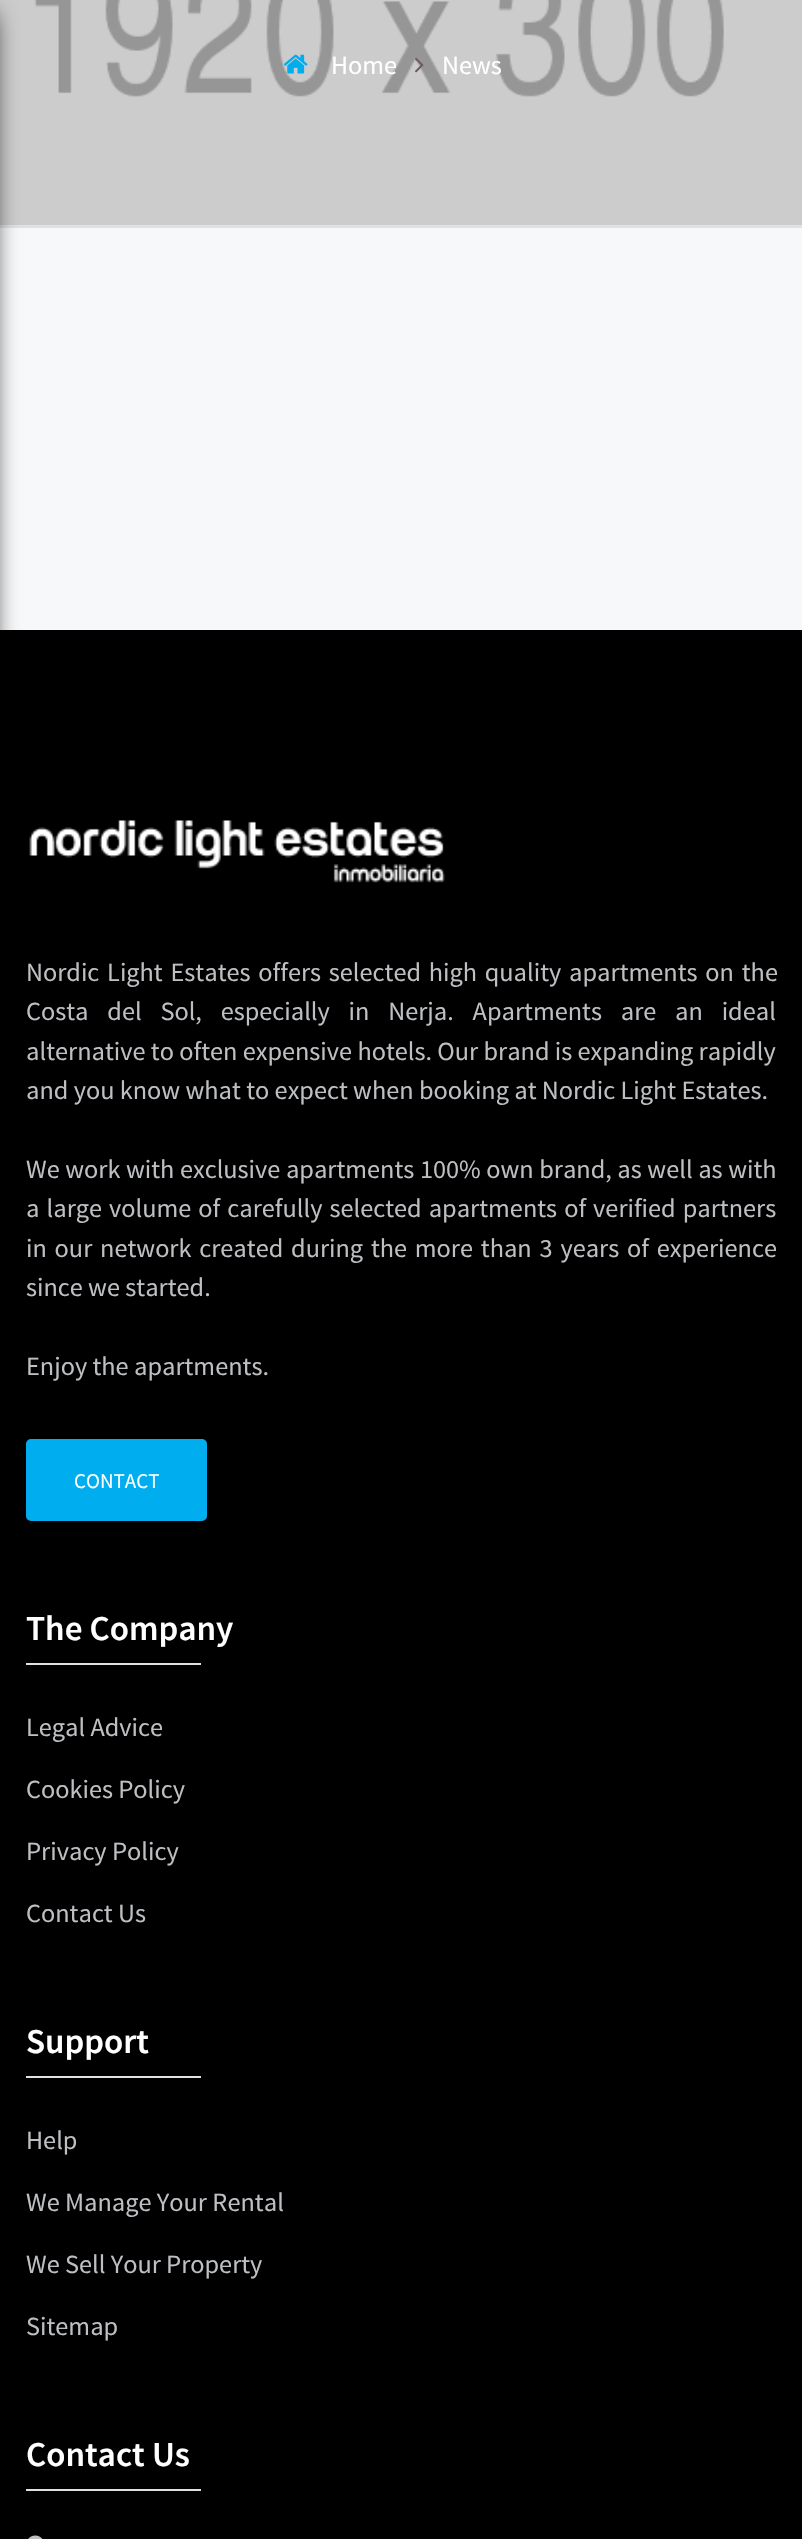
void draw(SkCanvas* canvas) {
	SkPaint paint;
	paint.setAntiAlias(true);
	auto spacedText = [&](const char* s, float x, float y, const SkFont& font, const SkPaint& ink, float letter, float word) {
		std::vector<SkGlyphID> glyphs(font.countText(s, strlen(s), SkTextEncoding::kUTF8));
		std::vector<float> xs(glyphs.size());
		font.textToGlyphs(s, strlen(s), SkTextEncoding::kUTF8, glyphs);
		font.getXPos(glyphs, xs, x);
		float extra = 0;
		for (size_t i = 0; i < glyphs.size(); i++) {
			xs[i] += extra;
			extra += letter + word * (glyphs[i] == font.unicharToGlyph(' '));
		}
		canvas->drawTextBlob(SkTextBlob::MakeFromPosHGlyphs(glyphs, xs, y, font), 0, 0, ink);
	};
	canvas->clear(0xfff7f8f9);
	canvas->drawImageRect(SkImages::DeferredFromEncodedData(SkData::MakeFromFileName("img1.png")), SkRect::MakeXYWH(0, 0, 802, 226), SkSamplingOptions());
	paint.setColor(0xffe1e1e1);
	canvas->drawRect(SkRect::MakeXYWH(0, 226, 802, 2), paint);
	paint.setColor(0xff000000);
	canvas->drawRect(SkRect::MakeXYWH(0, 630, 802, 1909), paint);
	canvas->drawImageRect(SkImages::DeferredFromEncodedData(SkData::MakeFromFileName("img4.png")), SkRect::MakeXYWH(29, 820, 416, 63), SkSamplingOptions());
	paint.setColor(0xff00aeef);
	canvas->drawRoundRect(SkRect::MakeXYWH(28, 1441, 177, 78), 3, 3, paint);
	paint.setStroke(true);
	paint.setStrokeWidth(4);
	canvas->drawRoundRect(SkRect::MakeXYWH(28, 1441, 177, 78), 3, 3, paint);
	paint.setStroke(false);
	paint.setColor(0xffe1e1e1);
	canvas->drawRect(SkRect::MakeXYWH(26, 1663, 175, 2), paint);
	canvas->drawRect(SkRect::MakeXYWH(26, 2076, 175, 2), paint);
	canvas->drawRect(SkRect::MakeXYWH(26, 2489, 175, 2), paint);
	canvas->drawImageRect(SkImages::DeferredFromEncodedData(SkData::MakeFromFileName("img5.png")), SkRect::MakeXYWH(28, 2535, 15, 4), SkSamplingOptions());
	paint.setColor(0xff000000);
	paint.setMaskFilter(SkMaskFilter::MakeBlur(kNormal_SkBlurStyle, 13));
	canvas->drawRect(SkRect::MakeXYWH(-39, 14, 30, 2522), paint);
	paint.setMaskFilter(nullptr);
	canvas->drawImageRect(SkImages::DeferredFromEncodedData(SkData::MakeFromFileName("img2.png")), SkRect::MakeXYWH(283, 54, 25, 20), SkSamplingOptions());
	SkFont f1(fontMgr->matchFamilyStyle("Source Sans Pro", SkFontStyle::Normal()), 26.25);
	f1.setSubpixel(true);
	paint.setColor(0xffffffff);
	canvas->drawString("Home", 331, 74, f1, paint);
	canvas->drawImageRect(SkImages::DeferredFromEncodedData(SkData::MakeFromFileName("img3.png")), SkRect::MakeXYWH(415, 57, 9, 16), SkSamplingOptions());
	canvas->drawString("News", 442, 74, f1, paint);
	paint.setColor(0xffbdbfc2);
	spacedText("Nordic Light Estates offers selected high quality apartments on the", 26, 981, f1, paint, 0, 2.5);
	spacedText("Costa del Sol, especially in Nerja. Apartments are an ideal", 26, 1020, f1, paint, 0, 13.5);
	canvas->drawString("alternative to often expensive hotels. Our brand is expanding rapidly", 26, 1060, f1, paint);
	canvas->drawString("and you know what to expect when booking at Nordic Light Estates.", 26, 1099, f1, paint);
	spacedText("We work with exclusive apartments 100% own brand, as well as with", 26, 1178, f1, paint, 0, 0.25);
	spacedText("a large volume of carefully selected apartments of verified partners", 26, 1217, f1, paint, 0, 1.75);
	spacedText("in our network created during the more than 3 years of experience", 26, 1257, f1, paint, 0, 2.5);
	canvas->drawString("since we started.", 26, 1296, f1, paint);
	canvas->drawString("Enjoy the apartments.", 26, 1375, f1, paint);
	SkFont f2(fontMgr->matchFamilyStyle("Source Sans Pro", SkFontStyle::Normal()), 21);
	f2.setSubpixel(true);
	paint.setColor(0xffffffff);
	canvas->drawString("CONTACT", 74, 1488, f2, paint);
	SkFont f3(fontMgr->matchFamilyStyle("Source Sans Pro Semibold", SkFontStyle(600, SkFontStyle::kNormal_Width, SkFontStyle::kUpright_Slant)), 35);
	f3.setSubpixel(true);
	canvas->drawString("The Company", 26, 1640, f3, paint);
	paint.setColor(0xffbdbfc2);
	canvas->drawString("Legal Advice", 26, 1736, f1, paint);
	canvas->drawString("Cookies Policy", 26, 1798, f1, paint);
	canvas->drawString("Privacy Policy", 26, 1860, f1, paint);
	canvas->drawString("Contact Us", 26, 1922, f1, paint);
	paint.setColor(0xffffffff);
	canvas->drawString("Support", 26, 2053, f3, paint);
	paint.setColor(0xffbdbfc2);
	canvas->drawString("Help", 26, 2149, f1, paint);
	canvas->drawString("We Manage Your Rental", 26, 2211, f1, paint);
	canvas->drawString("We Sell Your Property", 26, 2273, f1, paint);
	canvas->drawString("Sitemap", 26, 2335, f1, paint);
	paint.setColor(0xffffffff);
	canvas->drawString("Contact Us", 26, 2466, f3, paint);
}
